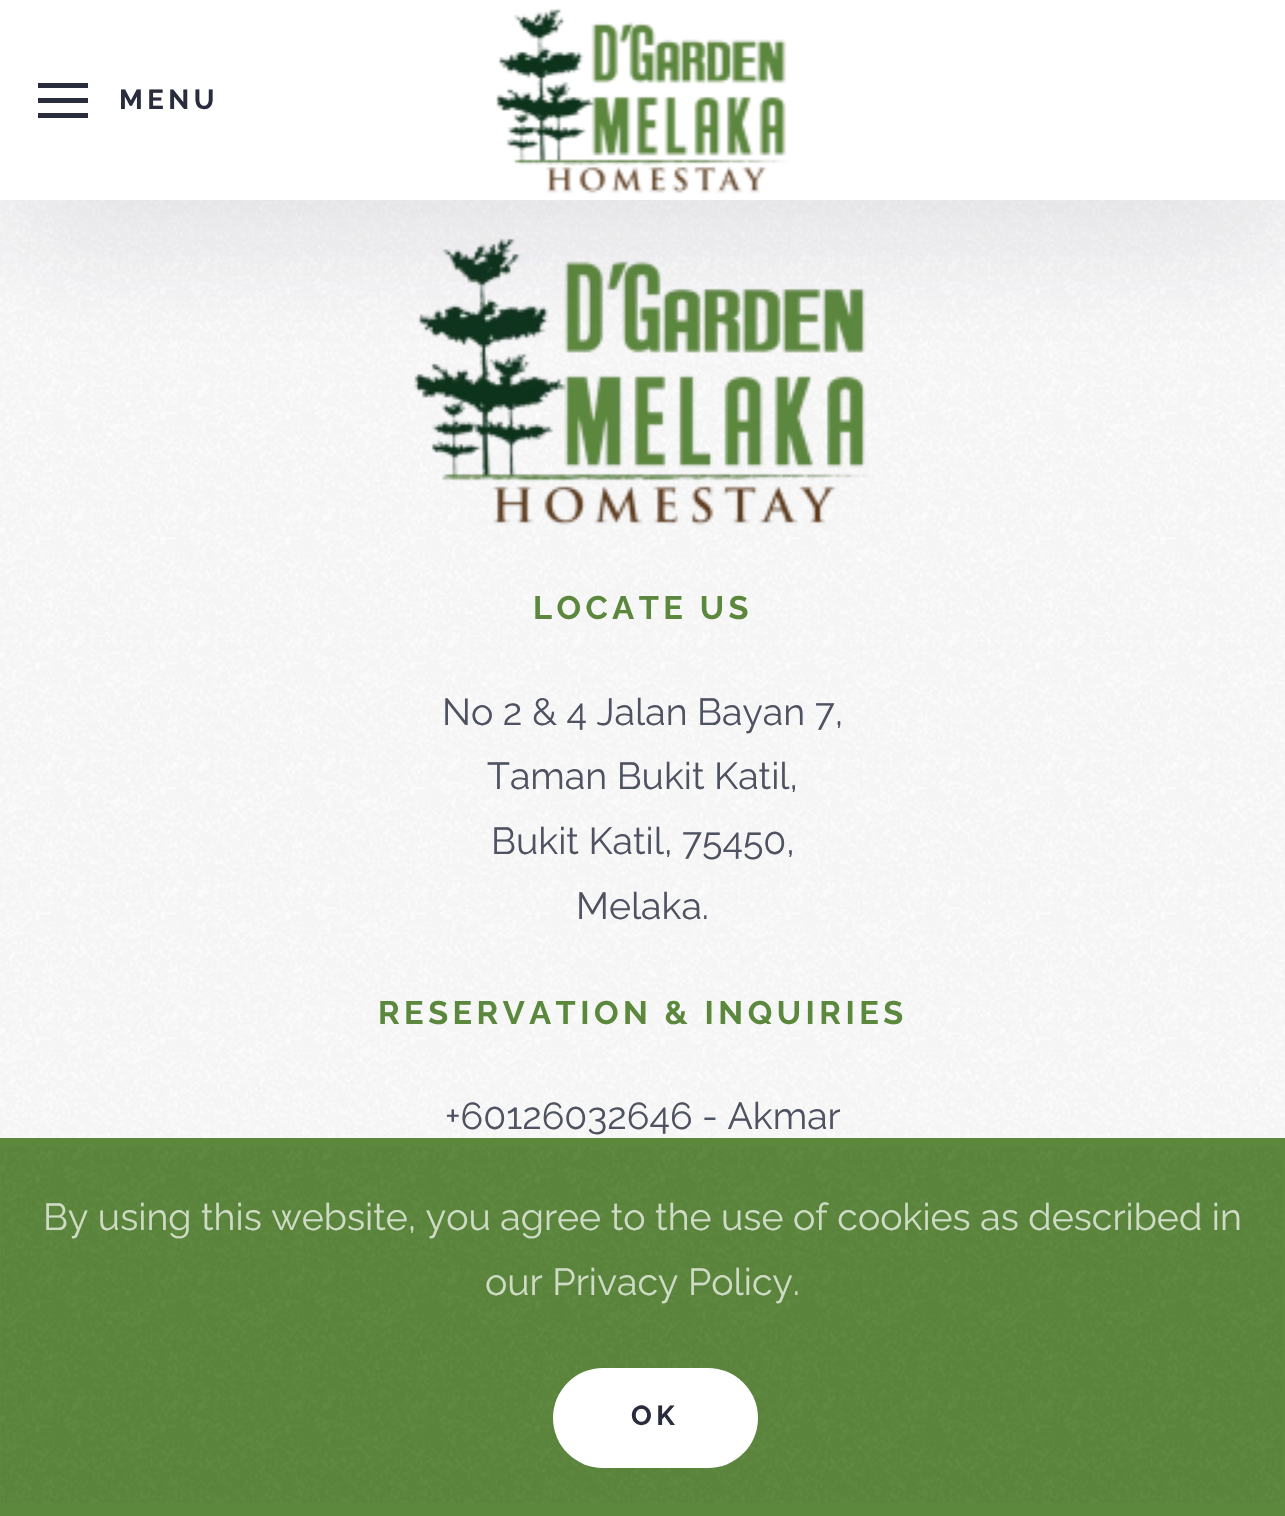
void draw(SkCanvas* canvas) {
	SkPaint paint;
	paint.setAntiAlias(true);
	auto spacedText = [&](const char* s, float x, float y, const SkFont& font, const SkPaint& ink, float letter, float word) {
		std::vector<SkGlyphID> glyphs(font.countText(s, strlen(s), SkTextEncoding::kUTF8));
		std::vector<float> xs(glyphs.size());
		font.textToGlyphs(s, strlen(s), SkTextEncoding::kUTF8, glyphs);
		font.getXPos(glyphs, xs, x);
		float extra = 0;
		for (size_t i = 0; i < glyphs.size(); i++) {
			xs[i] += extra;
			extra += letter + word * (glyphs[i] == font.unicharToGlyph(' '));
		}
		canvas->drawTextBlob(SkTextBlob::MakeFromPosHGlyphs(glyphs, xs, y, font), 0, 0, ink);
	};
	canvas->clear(0xfffcfcfd);
	canvas->drawImageRect(SkImages::DeferredFromEncodedData(SkData::MakeFromFileName("img2.png")), SkRect::MakeXYWH(0, 200, 1285, 938), SkSamplingOptions());
	canvas->drawImageRect(SkImages::DeferredFromEncodedData(SkData::MakeFromFileName("img3.png")), SkRect::MakeXYWH(414, 238, 455, 288), SkSamplingOptions());
	paint.setColor(0x1a292c3d);
	paint.setMaskFilter(SkMaskFilter::MakeBlur(kNormal_SkBlurStyle, 62.5));
	canvas->drawRect(SkRect::MakeXYWH(5, 38, 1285, 200), paint);
	paint.setMaskFilter(nullptr);
	paint.setColor(0xffffffff);
	canvas->drawRect(SkRect::MakeXYWH(0, 0, 1285, 200), paint);
	paint.setColor(0xff292c3d);
	canvas->drawRect(SkRect::MakeXYWH(38, 83, 50, 5), paint);
	canvas->drawRect(SkRect::MakeXYWH(38, 98, 50, 5), paint);
	canvas->drawRect(SkRect::MakeXYWH(38, 113, 50, 5), paint);
	SkFont f1(fontMgr->matchFamilyStyle("Raleway", SkFontStyle(100, SkFontStyle::kNormal_Width, SkFontStyle::kUpright_Slant)), 27.5);
	f1.setSubpixel(true);
	spacedText("MENU", 119, 109, f1, paint, 4.5, 0);
	canvas->drawImageRect(SkImages::DeferredFromEncodedData(SkData::MakeFromFileName("img1.png")), SkRect::MakeXYWH(495, 7, 292, 187), SkSamplingOptions());
	SkFont f2(fontMgr->matchFamilyStyle("Raleway", SkFontStyle(100, SkFontStyle::kNormal_Width, SkFontStyle::kUpright_Slant)), 32.5);
	f2.setSubpixel(true);
	paint.setColor(0xff5c883d);
	spacedText("LOCATE US", 533, 619, f2, paint, 4.5, 0);
	SkFont f3(fontMgr->matchFamilyStyle("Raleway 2", SkFontStyle(100, SkFontStyle::kNormal_Width, SkFontStyle::kUpright_Slant)), 37.5);
	f3.setSubpixel(true);
	paint.setColor(0xff4f5260);
	canvas->drawString("No 2 & 4 Jalan Bayan 7,", 442, 725, f3, paint);
	canvas->drawString("Taman Bukit Katil,", 487, 789, f3, paint);
	canvas->drawString("Bukit Katil, 75450,", 491, 854, f3, paint);
	canvas->drawString("Melaka.", 576, 919, f3, paint);
	paint.setColor(0xff5c883d);
	spacedText("RESERVATION & INQUIRIES", 378, 1024, f2, paint, 4.5, 0);
	paint.setColor(0xff4f5260);
	canvas->drawString("+60126032646 - Akmar", 445, 1129, f3, paint);
	paint.setColor(0xff5c883d);
	canvas->drawRect(SkRect::MakeXYWH(0, 1138, 1285, 378), paint);
	canvas->drawImageRect(SkImages::DeferredFromEncodedData(SkData::MakeFromFileName("img4.png")), SkRect::MakeXYWH(1, 1147, 1281, 356), SkSamplingOptions());
	paint.setColor(0xffcedbc5);
	canvas->drawString("By using this website, you agree to the use of cookies as described in", 43, 1230, f3, paint);
	canvas->drawString("our Privacy Policy.", 485, 1295, f3, paint);
	paint.setColor(0xffffffff);
	canvas->drawRoundRect(SkRect::MakeXYWH(553, 1368, 205, 100), 50, 50, paint);
	paint.setColor(0xff292c3d);
	spacedText("OK", 631, 1425, f1, paint, 4.5, 0);
}
